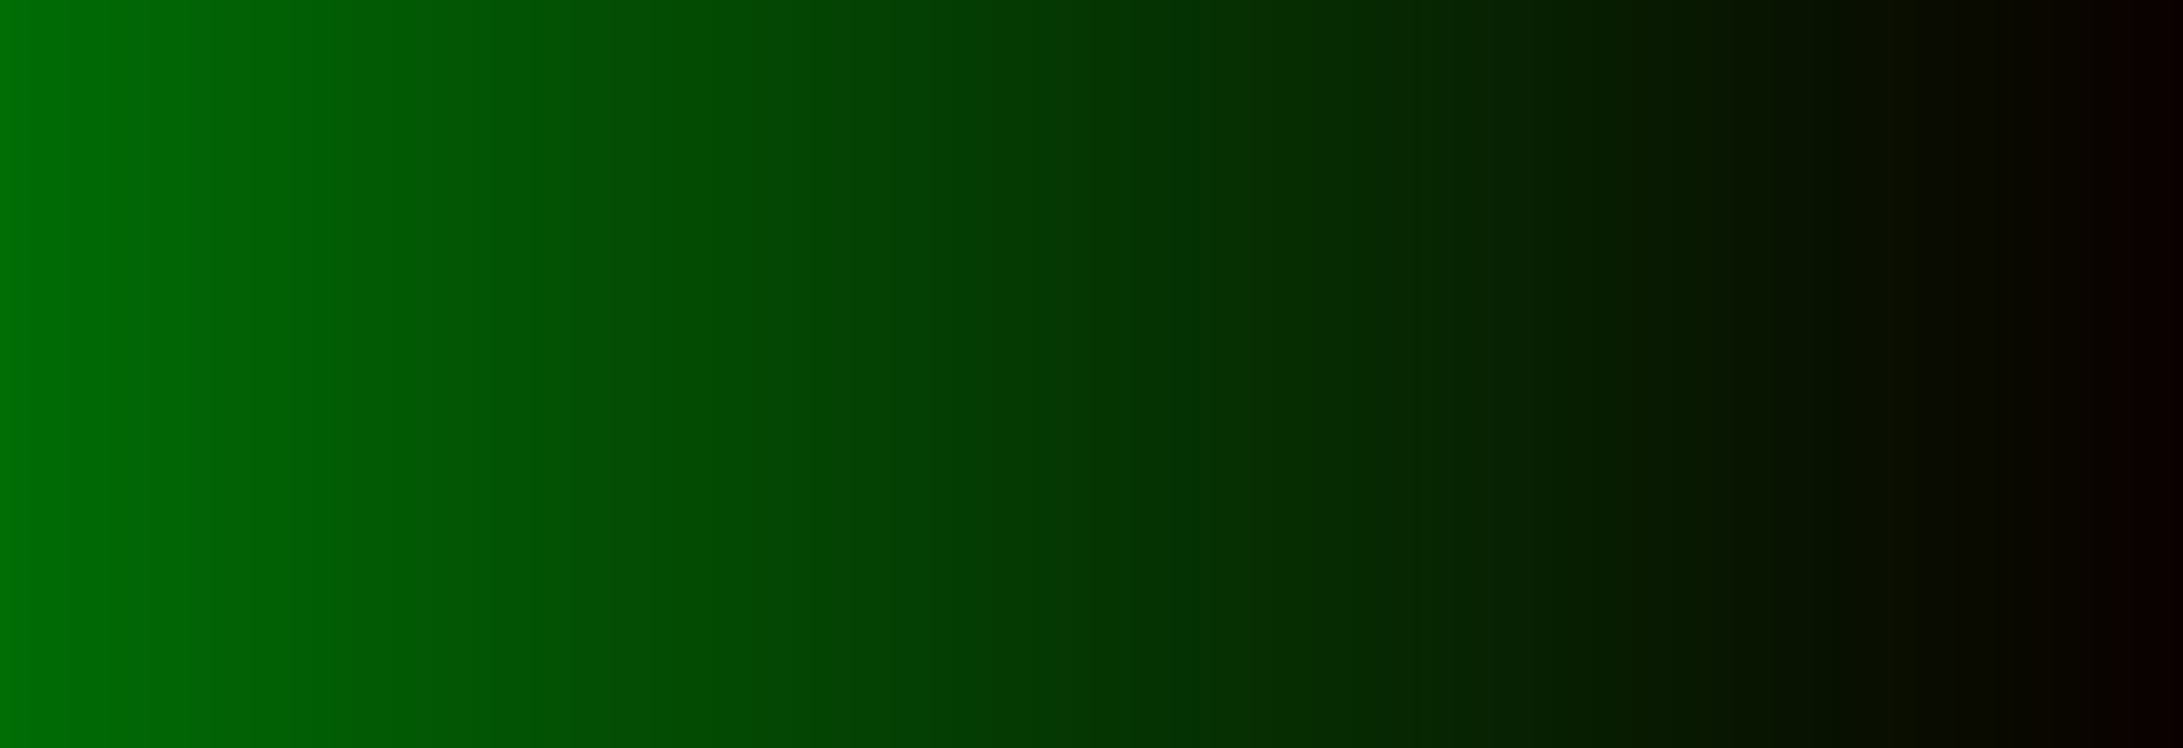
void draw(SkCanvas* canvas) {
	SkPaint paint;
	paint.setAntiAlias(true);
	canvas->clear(0xffffffff);
	{
		const SkColor colors[] = {0xff006d05, 0xff0a0000};
		const float stops[] = {0, 1};
		const SkPoint ends[] = {{0, 607}, {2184, 607}};
		paint.setShader(SkGradientShader::MakeLinear(ends, colors, stops, 2, SkTileMode::kClamp));
		paint.setAlpha(255);
	}
	canvas->drawRect(SkRect::MakeXYWH(0, 0, 2183, 748), paint);
}
